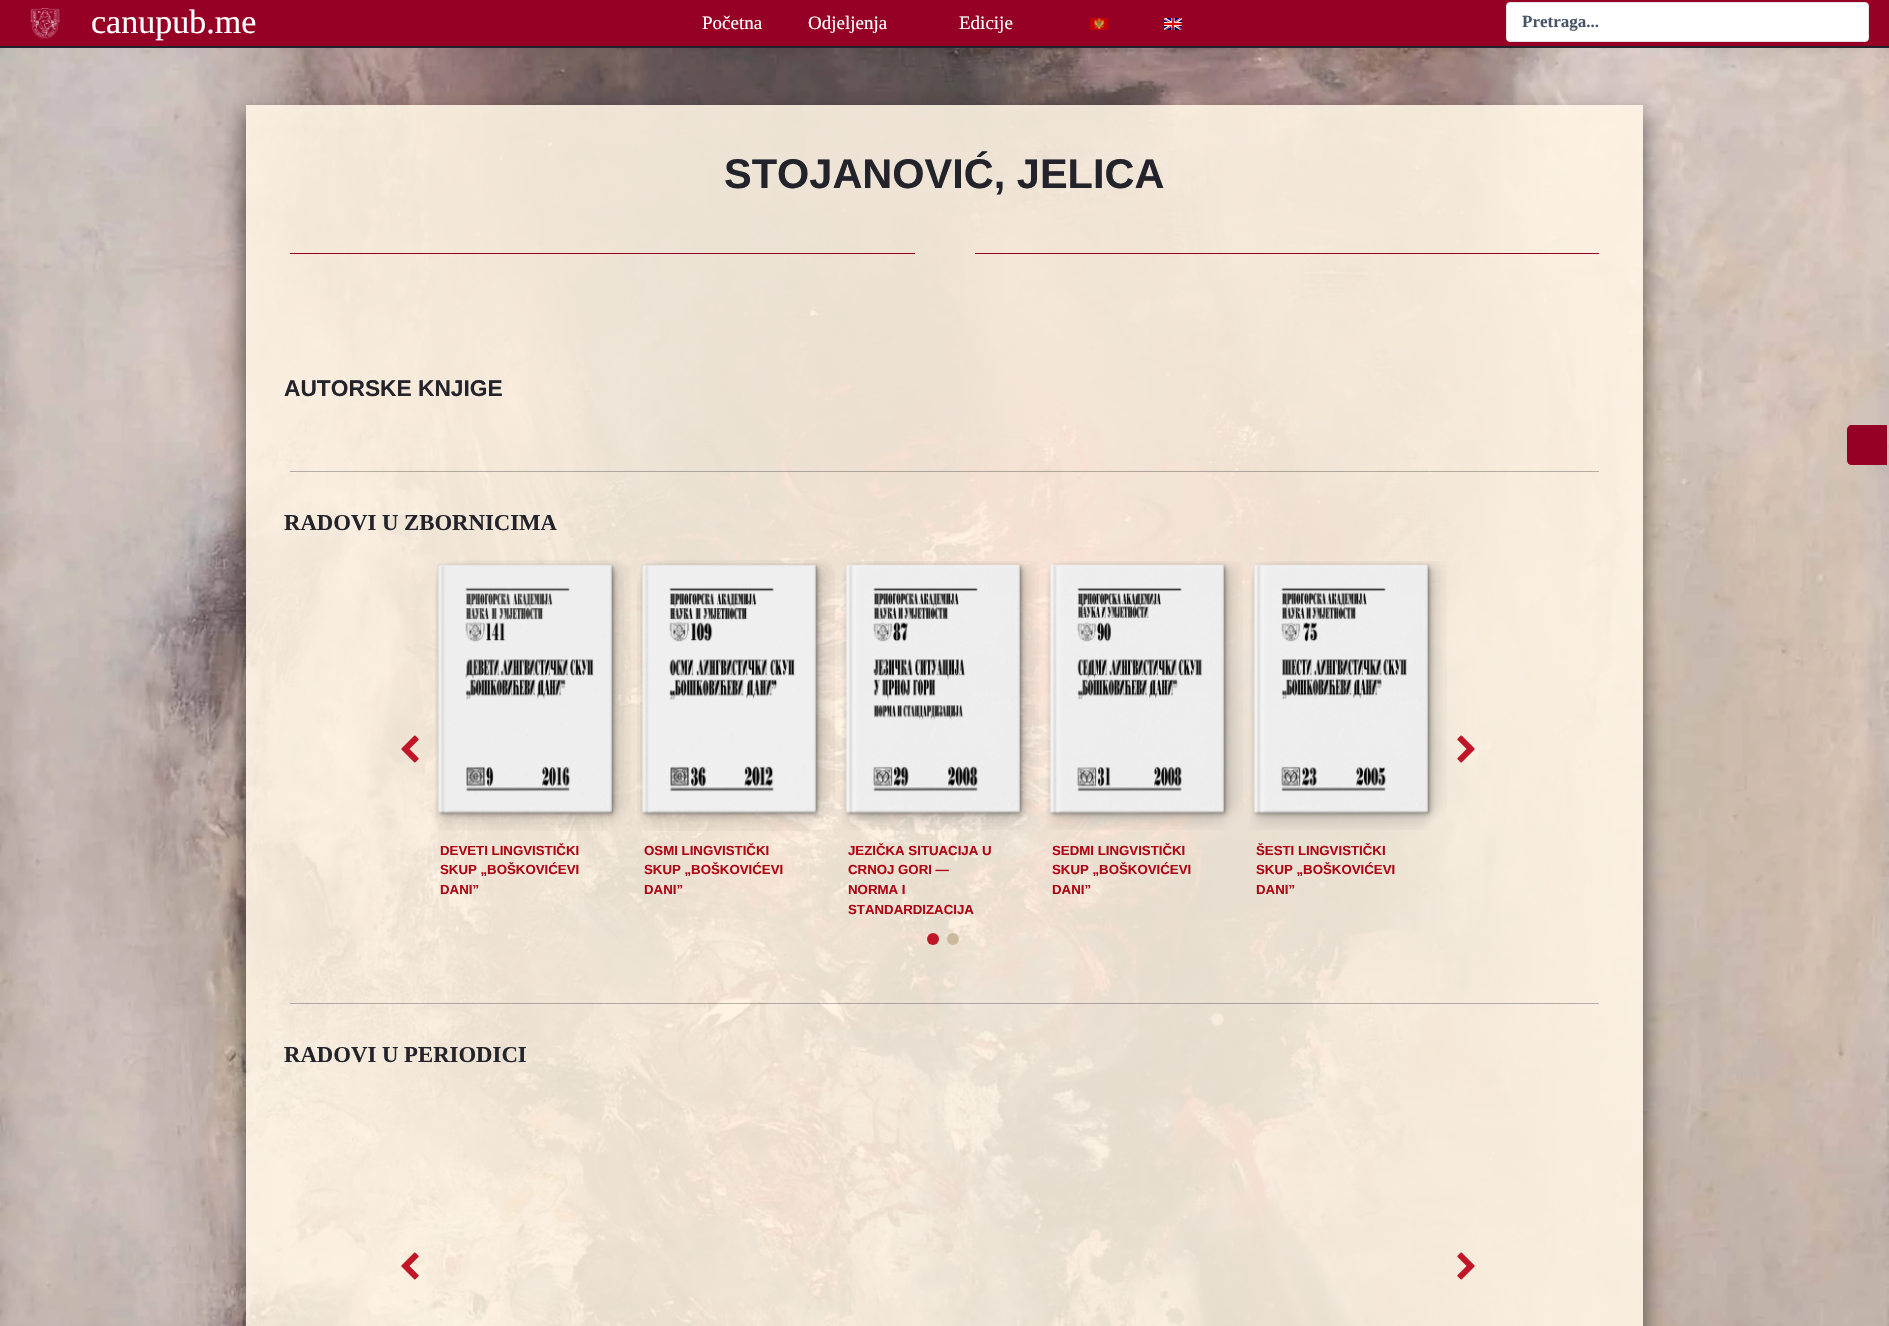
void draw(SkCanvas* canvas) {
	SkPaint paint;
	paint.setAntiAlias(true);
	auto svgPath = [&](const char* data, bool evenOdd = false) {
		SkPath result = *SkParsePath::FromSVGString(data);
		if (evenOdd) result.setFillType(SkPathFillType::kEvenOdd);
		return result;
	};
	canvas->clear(0xffffffff);
	paint.setColor(0xff960025);
	canvas->drawRect(SkRect::MakeXYWH(0, 0, 1889, 46), paint);
	paint.setColor(0xff23232b);
	canvas->drawRect(SkRect::MakeXYWH(0, 46, 1889, 2), paint);
	canvas->drawImageRect(SkImages::DeferredFromEncodedData(SkData::MakeFromFileName("img1.png")), SkRect::MakeXYWH(30, 8, 30, 31), SkSamplingOptions());
	SkFont f1(fontMgr->matchFamilyStyle("Liberation Serif", SkFontStyle::Normal()), 34);
	f1.setSubpixel(true);
	paint.setColor(0xffffffff);
	canvas->drawString("canupub.me", 91, 33, f1, paint);
	SkFont f2(fontMgr->matchFamilyStyle("Liberation Serif", SkFontStyle::Normal()), 19);
	f2.setSubpixel(true);
	canvas->drawString("Početna", 702, 29, f2, paint);
	canvas->drawString("Odjeljenja", 808, 29, f2, paint);
	canvas->drawString("Edicije", 959, 29, f2, paint);
	canvas->drawImageRect(SkImages::DeferredFromEncodedData(SkData::MakeFromFileName("img2.png")), SkRect::MakeXYWH(1090, 18, 18, 12), SkSamplingOptions());
	canvas->drawImageRect(SkImages::DeferredFromEncodedData(SkData::MakeFromFileName("img3.png")), SkRect::MakeXYWH(1164, 18, 18, 12), SkSamplingOptions());
	canvas->drawRoundRect(SkRect::MakeXYWH(1506.5, 2.5, 362, 39), 3.5, 3.5, paint);
	paint.setStroke(true);
	paint.setStrokeWidth(1);
	paint.setColor(0xffe1e5eb);
	canvas->drawRoundRect(SkRect::MakeXYWH(1506.5, 2.5, 362, 39), 3.5, 3.5, paint);
	SkFont f3(fontMgr->matchFamilyStyle("Liberation Serif", SkFontStyle::Bold()), 17);
	f3.setSubpixel(true);
	paint.setStroke(false);
	paint.setColor(0xff475569);
	canvas->drawString("Pretraga...", 1522, 27, f3, paint);
	canvas->drawImageRect(SkImages::DeferredFromEncodedData(SkData::MakeFromFileName("img4.png")), SkRect::MakeXYWH(0, 48, 1889, 1278), SkSamplingOptions());
	canvas->save();
	canvas->clipPath(svgPath("M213 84H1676V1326H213ZM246 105H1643V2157H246Z", true), true);
	paint.setColor(0x80000000);
	paint.setMaskFilter(SkMaskFilter::MakeBlur(kNormal_SkBlurStyle, 10));
	canvas->drawRect(SkRect::MakeXYWH(244, 115, 1401, 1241), paint);
	paint.setMaskFilter(nullptr);
	canvas->restore();
	paint.setColor(0xe3fff5e5);
	canvas->drawRect(SkRect::MakeXYWH(246, 105, 1397, 1221), paint);
	SkFont f4(fontMgr->matchFamilyStyle("Liberation Sans", SkFontStyle::Bold()), 41.5);
	f4.setSubpixel(true);
	paint.setColor(0xff23232b);
	canvas->drawString("STOJANOVIĆ, JELICA", 724, 188, f4, paint);
	paint.setColor(0xff960025);
	canvas->drawRect(SkRect::MakeXYWH(290, 253, 625, 1), paint);
	canvas->drawRect(SkRect::MakeXYWH(975, 253, 624, 1), paint);
	SkFont f5(fontMgr->matchFamilyStyle("Liberation Sans", SkFontStyle::Bold()), 22.75);
	f5.setSubpixel(true);
	paint.setColor(0xff23232b);
	canvas->drawString("AUTORSKE KNJIGE", 284, 396, f5, paint);
	paint.setColor(0x5223232b);
	canvas->drawRect(SkRect::MakeXYWH(290, 471, 1309, 1), paint);
	SkFont f6(fontMgr->matchFamilyStyle("Liberation Serif", SkFontStyle::Bold()), 22.75);
	f6.setSubpixel(true);
	paint.setColor(0xff23232b);
	canvas->drawString("RADOVI U ZBORNICIMA", 284, 530, f6, paint);
	canvas->drawImageRect(SkImages::DeferredFromEncodedData(SkData::MakeFromFileName("img5.png")), SkRect::MakeXYWH(401, 735, 18, 28), SkSamplingOptions());
	canvas->drawImageRect(SkImages::DeferredFromEncodedData(SkData::MakeFromFileName("img6.png")), SkRect::MakeXYWH(1457, 735, 18, 28), SkSamplingOptions());
	canvas->drawImageRect(SkImages::DeferredFromEncodedData(SkData::MakeFromFileName("img7.png")), SkRect::MakeXYWH(435, 560, 196, 271), SkSamplingOptions());
	SkFont f7(fontMgr->matchFamilyStyle("Liberation Sans", SkFontStyle::Bold()), 13.25);
	f7.setSubpixel(true);
	paint.setColor(0xffad0513);
	canvas->drawString("DEVETI LINGVISTIČKI", 440, 855, f7, paint);
	canvas->drawString("SKUP „BOŠKOVIĆEVI", 440, 874, f7, paint);
	canvas->drawString("DANI”", 440, 894, f7, paint);
	canvas->drawImageRect(SkImages::DeferredFromEncodedData(SkData::MakeFromFileName("img8.png")), SkRect::MakeXYWH(637, 560, 198, 271), SkSamplingOptions());
	canvas->drawString("OSMI LINGVISTIČKI", 644, 855, f7, paint);
	canvas->drawString("SKUP „BOŠKOVIĆEVI", 644, 874, f7, paint);
	canvas->drawString("DANI”", 644, 894, f7, paint);
	canvas->drawImageRect(SkImages::DeferredFromEncodedData(SkData::MakeFromFileName("img9.png")), SkRect::MakeXYWH(842, 561, 197, 269), SkSamplingOptions());
	canvas->drawString("JEZIČKA SITUACIJA U", 848, 855, f7, paint);
	canvas->drawString("CRNOJ GORI —", 848, 874, f7, paint);
	canvas->drawString("NORMA I", 848, 894, f7, paint);
	canvas->drawString("STANDARDIZACIJA", 848, 914, f7, paint);
	canvas->drawImageRect(SkImages::DeferredFromEncodedData(SkData::MakeFromFileName("img10.png")), SkRect::MakeXYWH(1046, 561, 197, 269), SkSamplingOptions());
	canvas->drawString("SEDMI LINGVISTIČKI", 1052, 855, f7, paint);
	canvas->drawString("SKUP „BOŠKOVIĆEVI", 1052, 874, f7, paint);
	canvas->drawString("DANI”", 1052, 894, f7, paint);
	canvas->drawImageRect(SkImages::DeferredFromEncodedData(SkData::MakeFromFileName("img11.png")), SkRect::MakeXYWH(1250, 561, 197, 269), SkSamplingOptions());
	canvas->drawString("ŠESTI LINGVISTIČKI", 1256, 855, f7, paint);
	canvas->drawString("SKUP „BOŠKOVIĆEVI", 1256, 874, f7, paint);
	canvas->drawString("DANI”", 1256, 894, f7, paint);
	paint.setColor(0xffc01627);
	canvas->drawCircle(933, 939, 6, paint);
	paint.setColor(0xabbba782);
	canvas->drawCircle(953, 939, 6, paint);
	paint.setColor(0x5223232b);
	canvas->drawRect(SkRect::MakeXYWH(290, 1003, 1309, 1), paint);
	paint.setColor(0xff23232b);
	canvas->drawString("RADOVI U PERIODICI", 284, 1062, f6, paint);
	canvas->drawImageRect(SkImages::DeferredFromEncodedData(SkData::MakeFromFileName("img12.png")), SkRect::MakeXYWH(401, 1252, 18, 28), SkSamplingOptions());
	canvas->drawImageRect(SkImages::DeferredFromEncodedData(SkData::MakeFromFileName("img13.png")), SkRect::MakeXYWH(1457, 1252, 18, 28), SkSamplingOptions());
	paint.setColor(0xff960025);
	canvas->drawPath(svgPath("M1852 425H1887V465H1852C1849 465 1847 463 1847 460V430C1847 427 1849 425 1852 425Z"), paint);
}
